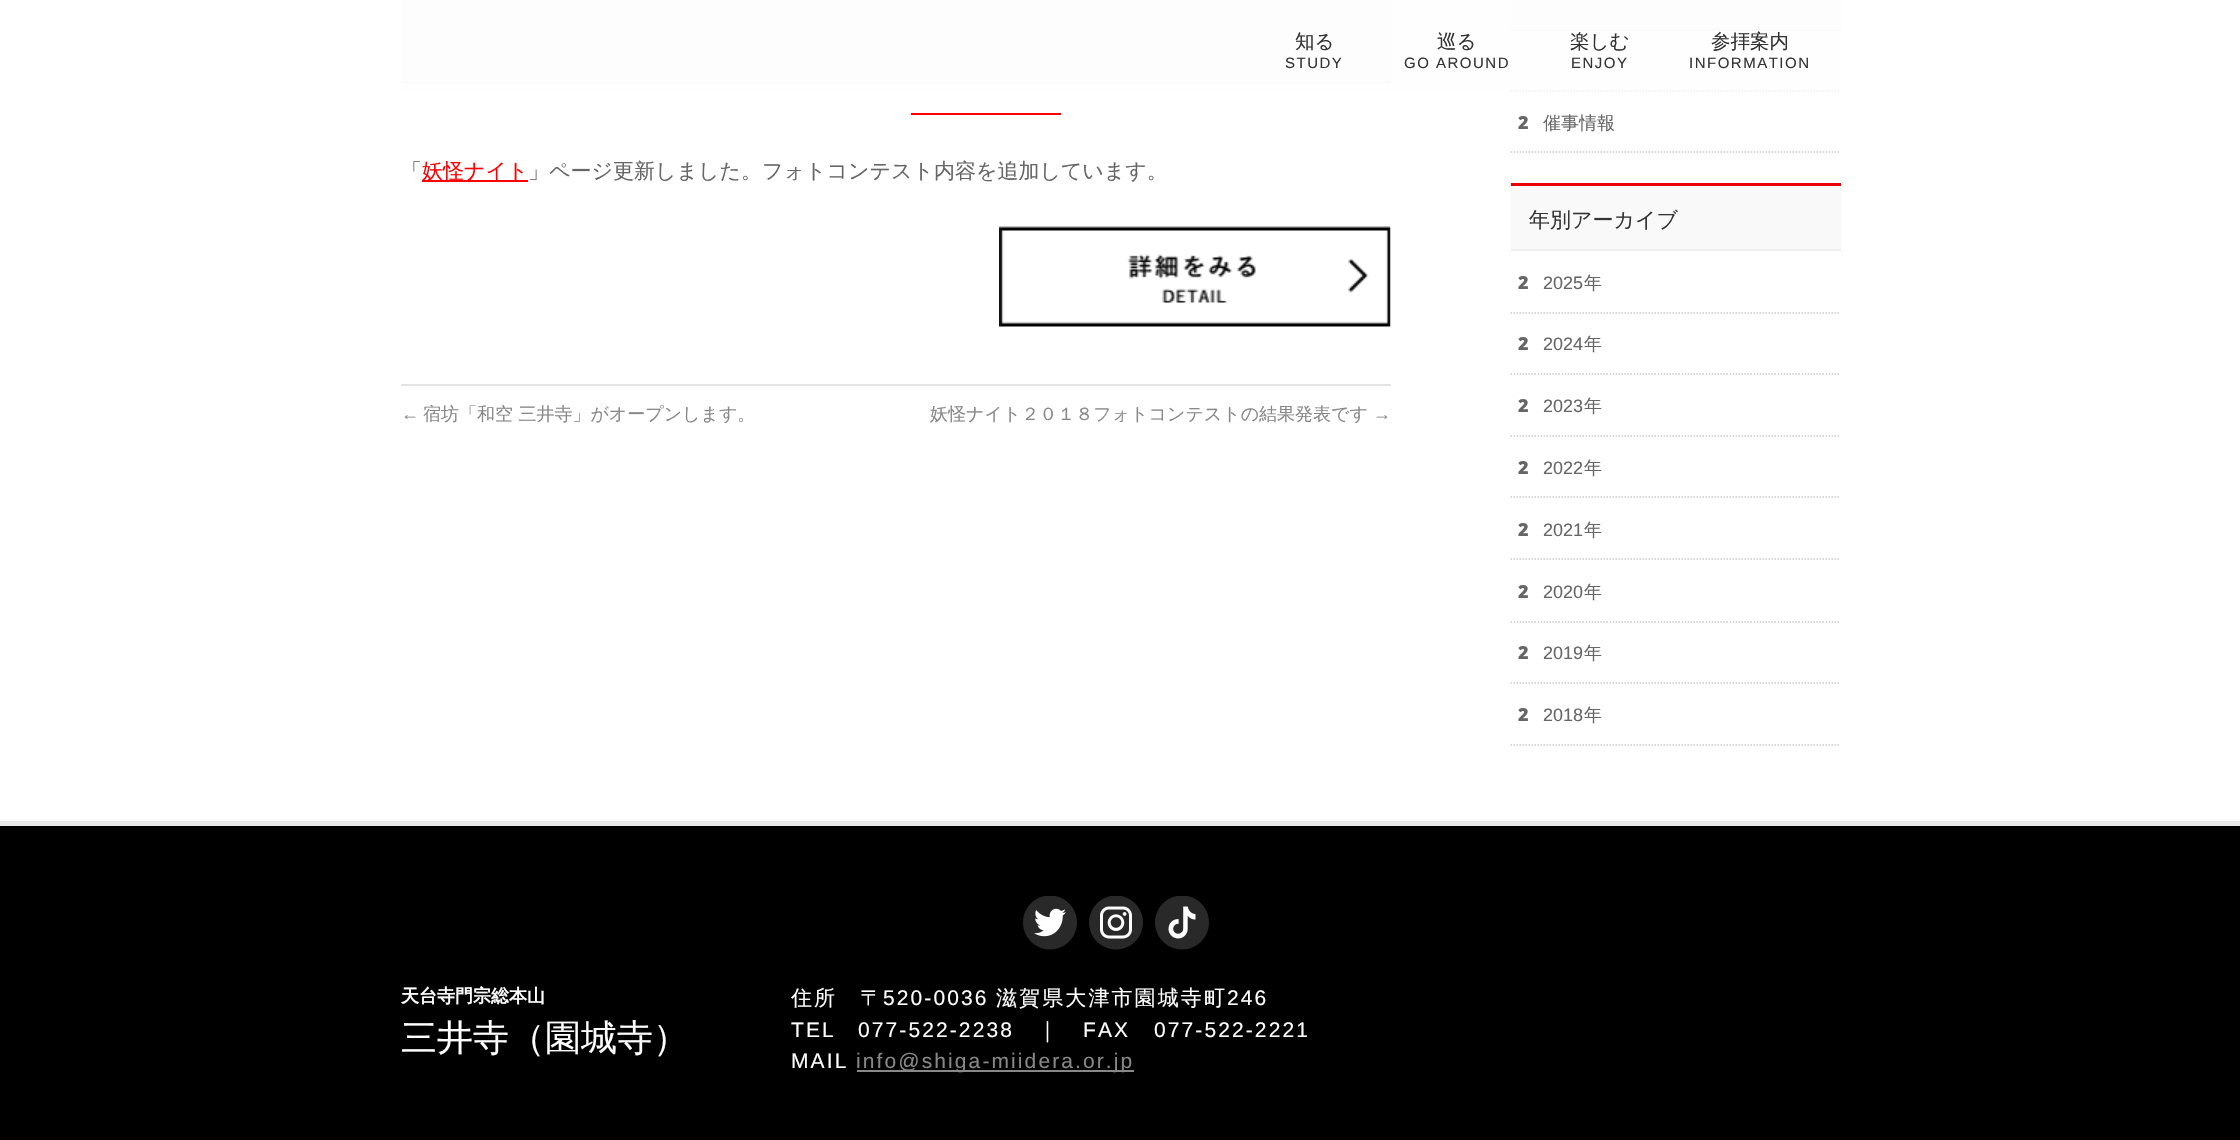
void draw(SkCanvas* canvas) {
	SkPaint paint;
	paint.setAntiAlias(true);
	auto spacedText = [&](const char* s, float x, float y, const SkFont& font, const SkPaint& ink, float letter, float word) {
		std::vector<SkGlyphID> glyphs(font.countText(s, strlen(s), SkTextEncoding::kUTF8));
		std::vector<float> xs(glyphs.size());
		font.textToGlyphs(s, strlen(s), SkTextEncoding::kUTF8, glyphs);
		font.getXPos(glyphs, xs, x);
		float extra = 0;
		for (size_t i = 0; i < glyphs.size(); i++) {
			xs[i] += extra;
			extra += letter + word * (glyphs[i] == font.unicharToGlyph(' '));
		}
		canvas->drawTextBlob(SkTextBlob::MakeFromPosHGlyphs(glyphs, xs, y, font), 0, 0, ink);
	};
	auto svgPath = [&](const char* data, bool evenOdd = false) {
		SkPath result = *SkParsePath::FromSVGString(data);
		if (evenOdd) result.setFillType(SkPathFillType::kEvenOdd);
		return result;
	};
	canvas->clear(0xffffffff);
	paint.setColor(0xfff9f9f9);
	canvas->drawRect(SkRect::MakeXYWH(401, 0, 990, 81), paint);
	paint.setColor(0xffefefef);
	canvas->drawRect(SkRect::MakeXYWH(401, 81, 990, 2), paint);
	paint.setColor(0xfff9f9f9);
	canvas->drawRect(SkRect::MakeXYWH(1511, 0, 330, 29), paint);
	paint.setColor(0xffefefef);
	canvas->drawRect(SkRect::MakeXYWH(1511, 29, 330, 2), paint);
	paint.setStroke(true);
	paint.setStrokeWidth(1.5);
	paint.setColor(0xffcccccc);
	paint.setPathEffect(SkDashPathEffect::Make({{1.5f, 1.5f}}, 0));
	canvas->drawPath(svgPath("M1510.5 91H1840.5"), paint);
	paint.setPathEffect(nullptr);
	paint.setStroke(false);
	paint.setColor(0xbffdfdfd);
	canvas->drawRect(SkRect::MakeXYWH(401, 0, 1440, 92), paint);
	SkFont f1(fontMgr->matchFamilyStyle("WenQuanYi Zen Hei", SkFontStyle(500, SkFontStyle::kNormal_Width, SkFontStyle::kUpright_Slant)), 19.5);
	f1.setSubpixel(true);
	paint.setColor(0xff333333);
	canvas->drawString("知る", 1295, 48, f1, paint);
	SkFont f2(fontMgr->matchFamilyStyle("Liberation Sans", SkFontStyle::Normal()), 15);
	f2.setSubpixel(true);
	spacedText("STUDY", 1285, 68, f2, paint, 1.5, 0);
	canvas->drawString("巡る", 1437, 48, f1, paint);
	spacedText("GO AROUND", 1404, 68, f2, paint, 1.5, 0);
	canvas->drawString("楽しむ", 1570, 48, f1, paint);
	spacedText("ENJOY", 1571, 68, f2, paint, 1.5, 0);
	canvas->drawString("参拝案内", 1711, 48, f1, paint);
	spacedText("INFORMATION", 1689, 68, f2, paint, 1.5, 0);
	paint.setColor(0xffff0000);
	canvas->drawRect(SkRect::MakeXYWH(911, 113, 150, 2), paint);
	SkFont f3(fontMgr->matchFamilyStyle("WenQuanYi Zen Hei", SkFontStyle(500, SkFontStyle::kNormal_Width, SkFontStyle::kUpright_Slant)), 21);
	f3.setSubpixel(true);
	paint.setColor(0xff666666);
	canvas->drawString("「", 401, 178, f3, paint);
	paint.setColor(0xffff0000);
	canvas->drawRect(SkRect::MakeXYWH(422, 180, 106, 2), paint);
	canvas->drawString("妖怪ナイト", 422, 178, f3, paint);
	paint.setColor(0xff666666);
	canvas->drawString("」ページ更新しました。フォトコンテスト内容を追加しています。", 528, 178, f3, paint);
	canvas->drawImageRect(SkImages::DeferredFromEncodedData(SkData::MakeFromFileName("img1.png")), SkRect::MakeXYWH(999, 226, 392, 101), SkSamplingOptions());
	paint.setColor(0xffe5e5e5);
	canvas->drawRect(SkRect::MakeXYWH(401, 384, 990, 2), paint);
	SkFont f4(fontMgr->matchFamilyStyle("Liberation Sans", SkFontStyle::Normal()), 18);
	f4.setSubpixel(true);
	paint.setColor(0xff888888);
	canvas->drawString("←", 401, 420, f4, paint);
	SkFont f5(fontMgr->matchFamilyStyle("WenQuanYi Zen Hei", SkFontStyle(500, SkFontStyle::kNormal_Width, SkFontStyle::kUpright_Slant)), 18);
	f5.setSubpixel(true);
	canvas->drawString("宿坊「和空 三井寺」がオープンします。", 423, 420, f5, paint);
	canvas->drawString("妖怪ナイト２０１８フォトコンテストの結果発表です", 930, 420, f5, paint);
	canvas->drawString("→", 1373, 420, f4, paint);
	paint.setStroke(true);
	paint.setColor(0xffcccccc);
	paint.setPathEffect(SkDashPathEffect::Make({{1.5f, 1.5f}}, 0));
	canvas->drawPath(svgPath("M1510.5 152H1840.5"), paint);
	paint.setPathEffect(nullptr);
	SkFont f6(fontMgr->matchFamilyStyle("Noto Sans", SkFontStyle(900, SkFontStyle::kNormal_Width, SkFontStyle::kUpright_Slant)), 18);
	f6.setSubpixel(true);
	paint.setStroke(false);
	paint.setColor(0xff666666);
	canvas->drawString("2", 1518, 129, f6, paint);
	canvas->drawString("催事情報", 1543, 129, f5, paint);
	paint.setColor(0xfff9f9f9);
	canvas->drawRect(SkRect::MakeXYWH(1511, 186, 330, 63), paint);
	paint.setColor(0xffe90000);
	canvas->drawRect(SkRect::MakeXYWH(1511, 183, 330, 3), paint);
	paint.setColor(0xffefefef);
	canvas->drawRect(SkRect::MakeXYWH(1511, 249, 330, 2), paint);
	paint.setColor(0xff333333);
	canvas->drawString("年別アーカイブ", 1529, 227, f3, paint);
	paint.setStroke(true);
	paint.setColor(0xffcccccc);
	paint.setPathEffect(SkDashPathEffect::Make({{1.5f, 1.5f}}, 0));
	canvas->drawPath(svgPath("M1510.5 313H1840.5"), paint);
	paint.setPathEffect(nullptr);
	paint.setStroke(false);
	paint.setColor(0xff666666);
	canvas->drawString("2", 1518, 289, f6, paint);
	canvas->drawString("2025", 1543, 289, f4, paint);
	canvas->drawString("年", 1584, 289, f5, paint);
	paint.setStroke(true);
	paint.setColor(0xffcccccc);
	paint.setPathEffect(SkDashPathEffect::Make({{1.5f, 1.5f}}, 0));
	canvas->drawPath(svgPath("M1510.5 374H1840.5"), paint);
	paint.setPathEffect(nullptr);
	paint.setStroke(false);
	paint.setColor(0xff666666);
	canvas->drawString("2", 1518, 350, f6, paint);
	canvas->drawString("2024", 1543, 350, f4, paint);
	canvas->drawString("年", 1584, 350, f5, paint);
	paint.setStroke(true);
	paint.setColor(0xffcccccc);
	paint.setPathEffect(SkDashPathEffect::Make({{1.5f, 1.5f}}, 0));
	canvas->drawPath(svgPath("M1510.5 436H1840.5"), paint);
	paint.setPathEffect(nullptr);
	paint.setStroke(false);
	paint.setColor(0xff666666);
	canvas->drawString("2", 1518, 412, f6, paint);
	canvas->drawString("2023", 1543, 412, f4, paint);
	canvas->drawString("年", 1584, 412, f5, paint);
	paint.setStroke(true);
	paint.setColor(0xffcccccc);
	paint.setPathEffect(SkDashPathEffect::Make({{1.5f, 1.5f}}, 0));
	canvas->drawPath(svgPath("M1510.5 497H1840.5"), paint);
	paint.setPathEffect(nullptr);
	paint.setStroke(false);
	paint.setColor(0xff666666);
	canvas->drawString("2", 1518, 474, f6, paint);
	canvas->drawString("2022", 1543, 474, f4, paint);
	canvas->drawString("年", 1584, 474, f5, paint);
	paint.setStroke(true);
	paint.setColor(0xffcccccc);
	paint.setPathEffect(SkDashPathEffect::Make({{1.5f, 1.5f}}, 0));
	canvas->drawPath(svgPath("M1510.5 559H1840.5"), paint);
	paint.setPathEffect(nullptr);
	paint.setStroke(false);
	paint.setColor(0xff666666);
	canvas->drawString("2", 1518, 536, f6, paint);
	canvas->drawString("2021", 1543, 536, f4, paint);
	canvas->drawString("年", 1584, 536, f5, paint);
	paint.setStroke(true);
	paint.setColor(0xffcccccc);
	paint.setPathEffect(SkDashPathEffect::Make({{1.5f, 1.5f}}, 0));
	canvas->drawPath(svgPath("M1510.5 622H1840.5"), paint);
	paint.setPathEffect(nullptr);
	paint.setStroke(false);
	paint.setColor(0xff666666);
	canvas->drawString("2", 1518, 598, f6, paint);
	canvas->drawString("2020", 1543, 598, f4, paint);
	canvas->drawString("年", 1584, 598, f5, paint);
	paint.setStroke(true);
	paint.setColor(0xffcccccc);
	paint.setPathEffect(SkDashPathEffect::Make({{1.5f, 1.5f}}, 0));
	canvas->drawPath(svgPath("M1510.5 683H1840.5"), paint);
	paint.setPathEffect(nullptr);
	paint.setStroke(false);
	paint.setColor(0xff666666);
	canvas->drawString("2", 1518, 659, f6, paint);
	canvas->drawString("2019", 1543, 659, f4, paint);
	canvas->drawString("年", 1584, 659, f5, paint);
	paint.setStroke(true);
	paint.setColor(0xffcccccc);
	paint.setPathEffect(SkDashPathEffect::Make({{1.5f, 1.5f}}, 0));
	canvas->drawPath(svgPath("M1510.5 745H1840.5"), paint);
	paint.setPathEffect(nullptr);
	paint.setStroke(false);
	paint.setColor(0xff666666);
	canvas->drawString("2", 1518, 721, f6, paint);
	canvas->drawString("2018", 1543, 721, f4, paint);
	canvas->drawString("年", 1584, 721, f5, paint);
	paint.setColor(0xffe9e9e9);
	canvas->drawRect(SkRect::MakeXYWH(0, 821, 2240, 5), paint);
	paint.setColor(0xff000000);
	canvas->drawRect(SkRect::MakeXYWH(0, 826, 2240, 314), paint);
	canvas->drawImageRect(SkImages::DeferredFromEncodedData(SkData::MakeFromFileName("img2.png")), SkRect::MakeXYWH(1023, 896, 54, 54), SkSamplingOptions());
	canvas->drawImageRect(SkImages::DeferredFromEncodedData(SkData::MakeFromFileName("img3.png")), SkRect::MakeXYWH(1089, 896, 54, 54), SkSamplingOptions());
	canvas->drawImageRect(SkImages::DeferredFromEncodedData(SkData::MakeFromFileName("img4.png")), SkRect::MakeXYWH(1155, 896, 54, 54), SkSamplingOptions());
	SkFont f7(fontMgr->matchFamilyStyle("WenQuanYi Zen Hei", SkFontStyle::Bold()), 18);
	f7.setSubpixel(true);
	paint.setColor(0xffffffff);
	canvas->drawString("天台寺門宗総本山", 401, 1002, f7, paint);
	SkFont f8(fontMgr->matchFamilyStyle("WenQuanYi Zen Hei", SkFontStyle(500, SkFontStyle::kNormal_Width, SkFontStyle::kUpright_Slant)), 36);
	f8.setSubpixel(true);
	canvas->drawString("三井寺（園城寺）", 401, 1050, f8, paint);
	spacedText("住所　〒", 791, 1005, f3, paint, 2.1, 0);
	SkFont f9(fontMgr->matchFamilyStyle("Liberation Sans", SkFontStyle::Normal()), 21);
	f9.setSubpixel(true);
	spacedText("520-0036", 883, 1005, f9, paint, 2.1, 0);
	spacedText("滋賀県大津市園城寺町", 996, 1005, f3, paint, 2.1, 0);
	spacedText("246", 1227, 1005, f9, paint, 2.1, 0);
	spacedText("TEL", 791, 1037, f9, paint, 2.1, 0);
	spacedText("077-522-2238", 858, 1037, f9, paint, 2.1, 0);
	spacedText("｜", 1037, 1037, f3, paint, 2.1, 0);
	spacedText("FAX", 1083, 1037, f9, paint, 2.1, 0);
	spacedText("077-522-2221", 1154, 1037, f9, paint, 2.1, 0);
	spacedText("MAIL", 791, 1068, f9, paint, 2.1, 0);
	paint.setColor(0xff888888);
	canvas->drawRect(SkRect::MakeXYWH(857, 1070, 277, 2), paint);
	spacedText("info@shiga-miidera.or.jp", 856, 1068, f9, paint, 2.1, 0);
}
